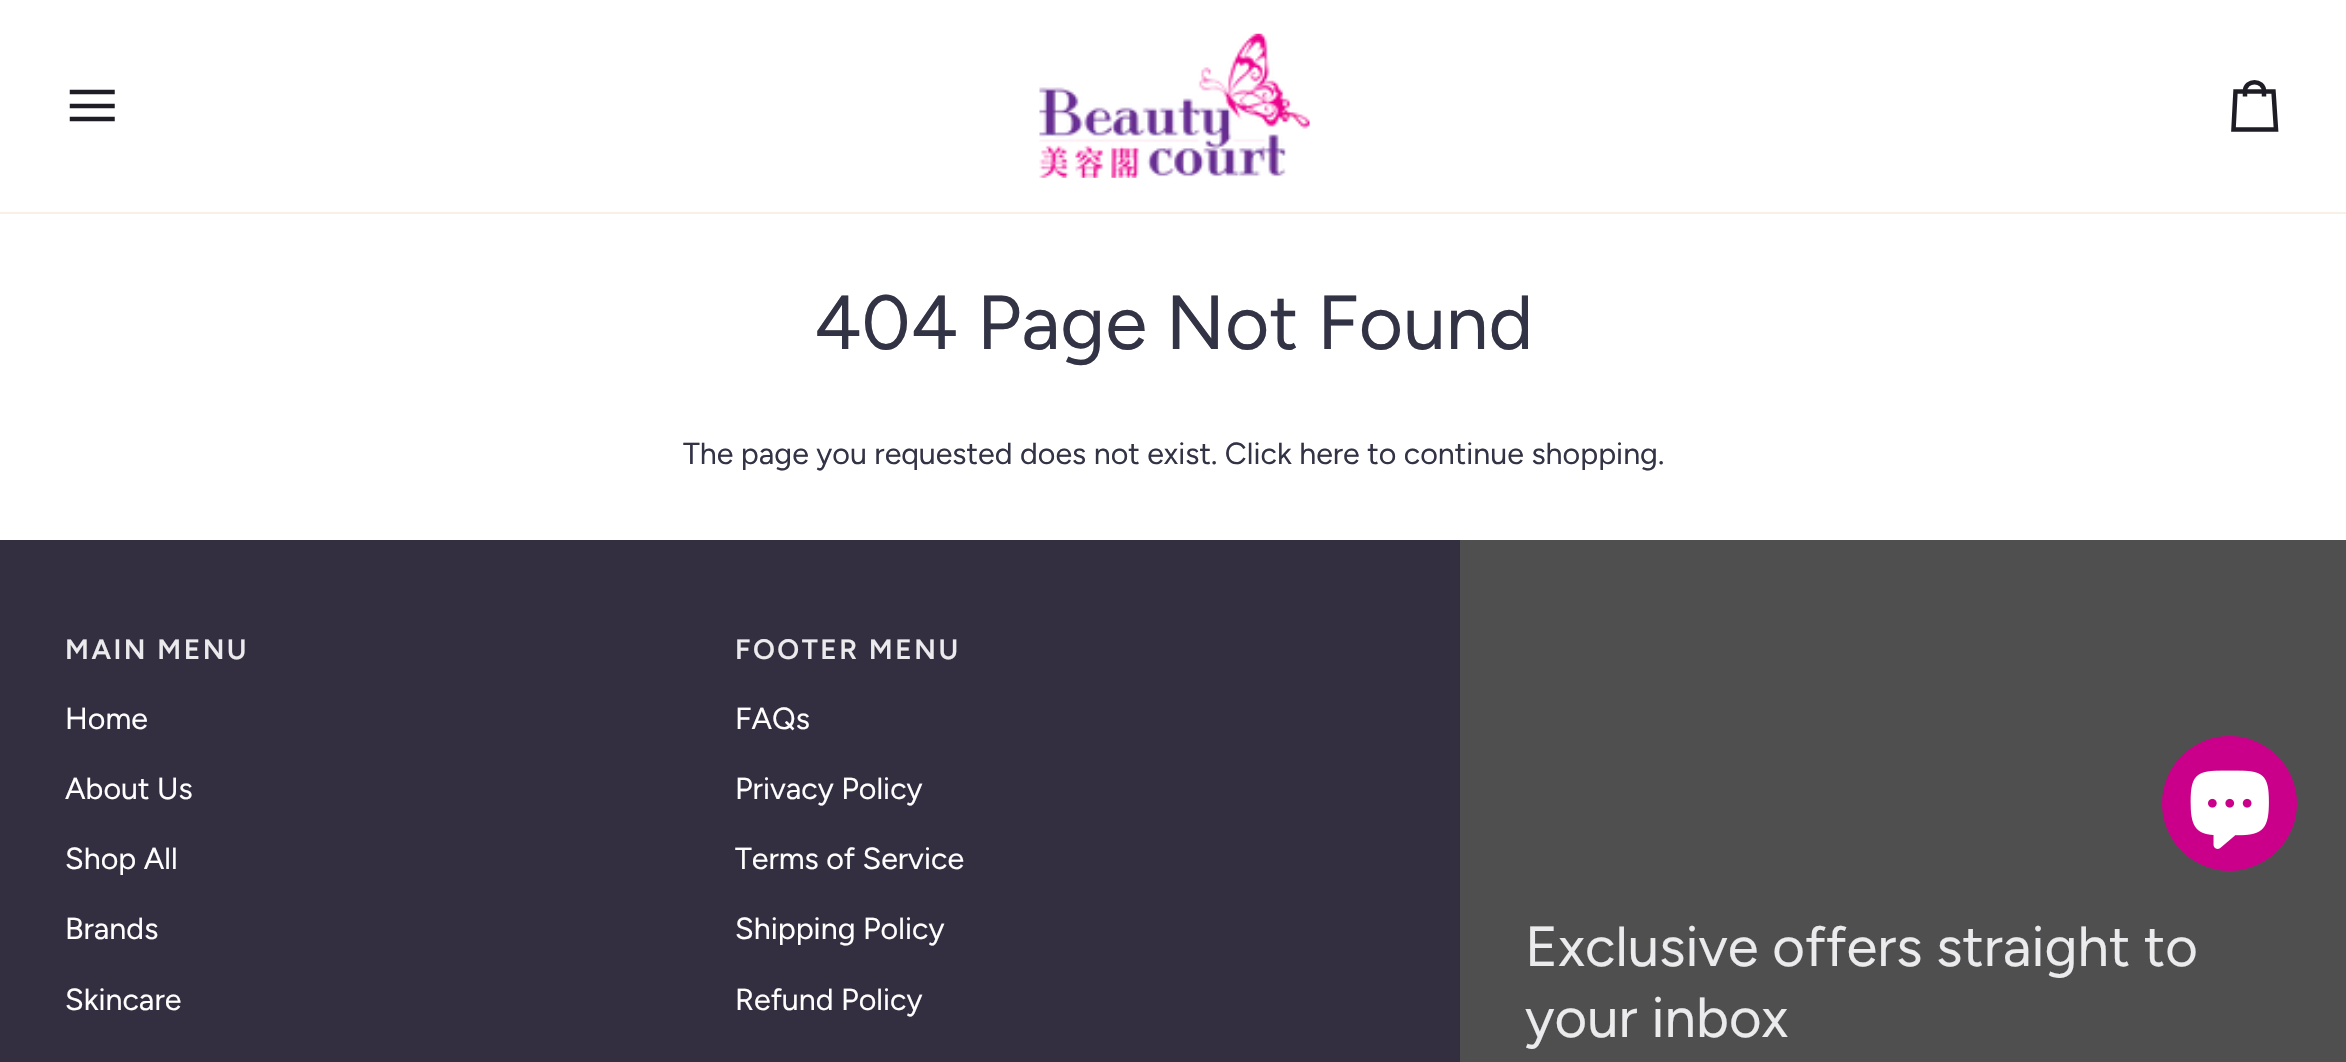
void draw(SkCanvas* canvas) {
	SkPaint paint;
	paint.setAntiAlias(true);
	auto spacedText = [&](const char* s, float x, float y, const SkFont& font, const SkPaint& ink, float letter, float word) {
		std::vector<SkGlyphID> glyphs(font.countText(s, strlen(s), SkTextEncoding::kUTF8));
		std::vector<float> xs(glyphs.size());
		font.textToGlyphs(s, strlen(s), SkTextEncoding::kUTF8, glyphs);
		font.getXPos(glyphs, xs, x);
		float extra = 0;
		for (size_t i = 0; i < glyphs.size(); i++) {
			xs[i] += extra;
			extra += letter + word * (glyphs[i] == font.unicharToGlyph(' '));
		}
		canvas->drawTextBlob(SkTextBlob::MakeFromPosHGlyphs(glyphs, xs, y, font), 0, 0, ink);
	};
	auto svgPath = [&](const char* data, bool evenOdd = false) {
		SkPath result = *SkParsePath::FromSVGString(data);
		if (evenOdd) result.setFillType(SkPathFillType::kEvenOdd);
		return result;
	};
	canvas->clear(0xffffffff);
	paint.setColor(0xfff8f0e7);
	canvas->drawRect(SkRect::MakeXYWH(0, 212, 2346, 2), paint);
	paint.setStroke(true);
	paint.setStrokeWidth(4.5);
	paint.setStrokeCap(SkPaint::kSquare_Cap);
	paint.setColor(0xff1e1d25);
	canvas->drawPath(svgPath("M112.5 92H72M112.5 106H72M112.5 119H72"), paint);
	canvas->drawImageRect(SkImages::DeferredFromEncodedData(SkData::MakeFromFileName("img1.png")), SkRect::MakeXYWH(1039, 33, 271, 145), SkSamplingOptions());
	paint.setStrokeCap(SkPaint::kButt_Cap);
	canvas->drawPath(svgPath("M2264 96.5V91.5H2273.5L2276 129.5H2233.5L2235.5 91.5H2245C2245 79 2264 79 2264 91.5H2245V96.5"), paint);
	SkFont f1(fontMgr->matchFamilyStyle("Figtree", SkFontStyle::Normal()), 76.5);
	f1.setSubpixel(true);
	paint.setStroke(false);
	paint.setColor(0xff333346);
	canvas->drawString("404 Page Not Found", 814, 349, f1, paint);
	SkFont f2(fontMgr->matchFamilyStyle("Figtree", SkFontStyle::Normal()), 30.4);
	f2.setSubpixel(true);
	canvas->drawString("The page you requested does not exist. Click here to continue shopping.", 683, 464, f2, paint);
	paint.setColor(0xff342e41);
	canvas->drawRect(SkRect::MakeXYWH(0, 540, 1460, 522), paint);
	SkFont f3(fontMgr->matchFamilyStyle("Figtree", SkFontStyle(600, SkFontStyle::kNormal_Width, SkFontStyle::kUpright_Slant)), 28);
	f3.setSubpixel(true);
	paint.setColor(0xffebeaec);
	spacedText("MAIN MENU", 65, 659, f3, paint, 2.5, 0);
	paint.setColor(0xffffffff);
	canvas->drawString("Home", 65, 729, f2, paint);
	canvas->drawString("About Us", 65, 799, f2, paint);
	canvas->drawString("Shop All", 65, 869, f2, paint);
	canvas->drawString("Brands", 65, 939, f2, paint);
	canvas->drawString("Skincare", 65, 1010, f2, paint);
	paint.setColor(0xffebeaec);
	spacedText("FOOTER MENU", 735, 659, f3, paint, 2.5, 0);
	paint.setColor(0xffffffff);
	canvas->drawString("FAQs", 735, 729, f2, paint);
	canvas->drawString("Privacy Policy", 735, 799, f2, paint);
	canvas->drawString("Terms of Service", 735, 869, f2, paint);
	canvas->drawString("Shipping Policy", 735, 939, f2, paint);
	canvas->drawString("Refund Policy", 735, 1010, f2, paint);
	paint.setColor(0xff4f4f4f);
	canvas->drawRect(SkRect::MakeXYWH(1460, 540, 886, 522), paint);
	SkFont f4(fontMgr->matchFamilyStyle("Figtree", SkFontStyle::Normal()), 56.25);
	f4.setSubpixel(true);
	paint.setColor(0xffebeaec);
	canvas->drawString("Exclusive offers straight to", 1525, 966, f4, paint);
	canvas->drawString("your inbox", 1525, 1037, f4, paint);
	paint.setColor(0xffca008b);
	canvas->drawCircle(2229.5, 803.5, 67.5, paint);
	canvas->drawImageRect(SkImages::DeferredFromEncodedData(SkData::MakeFromFileName("img2.png")), SkRect::MakeXYWH(2190, 770, 79, 79), SkSamplingOptions());
}
